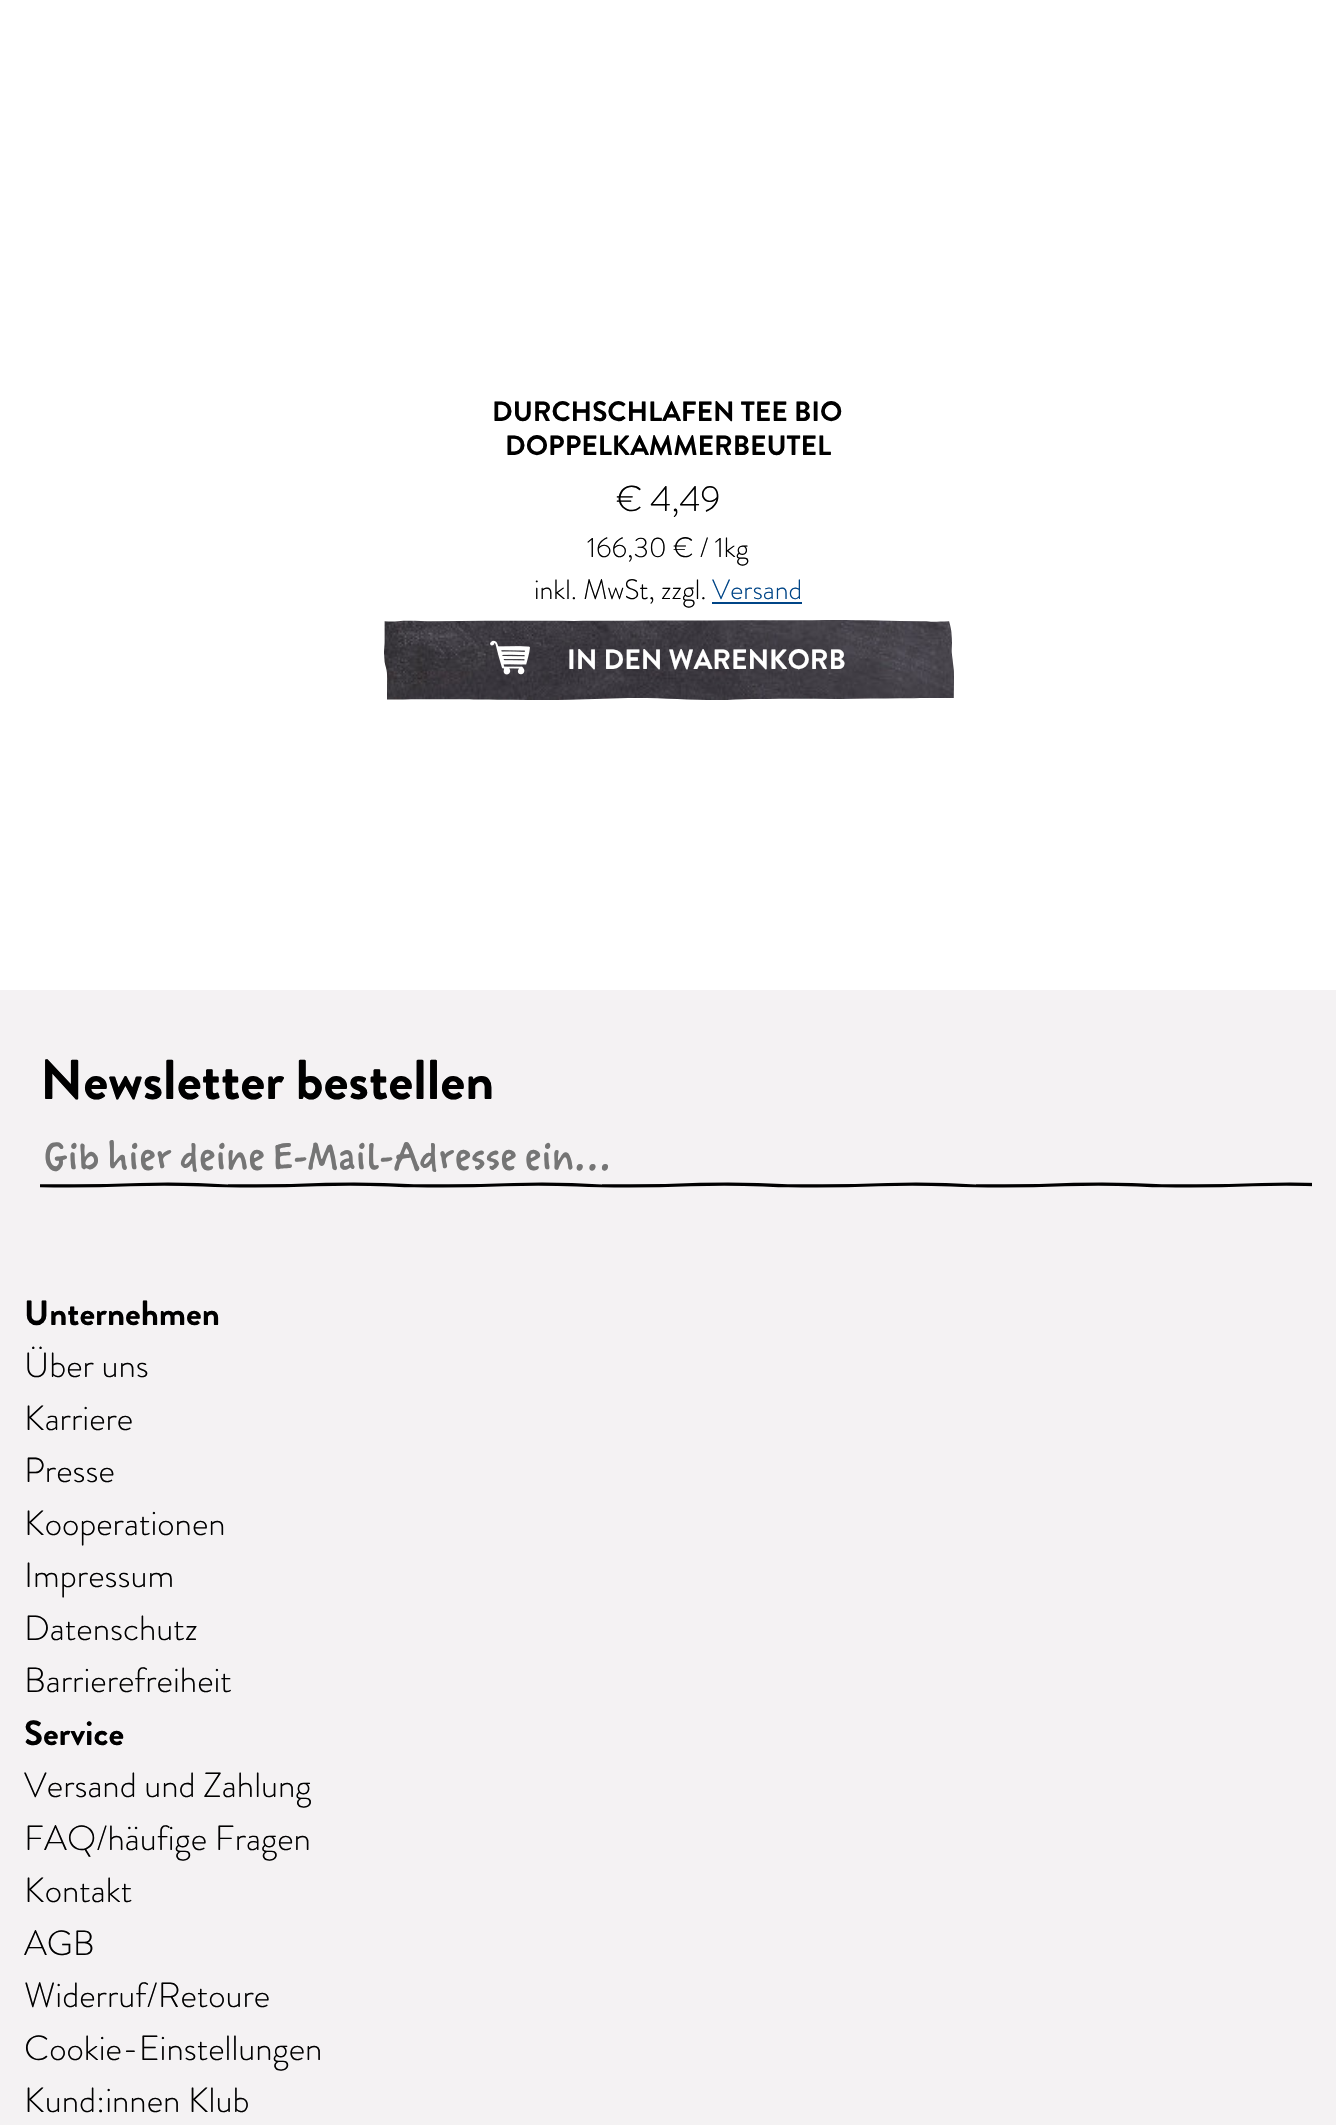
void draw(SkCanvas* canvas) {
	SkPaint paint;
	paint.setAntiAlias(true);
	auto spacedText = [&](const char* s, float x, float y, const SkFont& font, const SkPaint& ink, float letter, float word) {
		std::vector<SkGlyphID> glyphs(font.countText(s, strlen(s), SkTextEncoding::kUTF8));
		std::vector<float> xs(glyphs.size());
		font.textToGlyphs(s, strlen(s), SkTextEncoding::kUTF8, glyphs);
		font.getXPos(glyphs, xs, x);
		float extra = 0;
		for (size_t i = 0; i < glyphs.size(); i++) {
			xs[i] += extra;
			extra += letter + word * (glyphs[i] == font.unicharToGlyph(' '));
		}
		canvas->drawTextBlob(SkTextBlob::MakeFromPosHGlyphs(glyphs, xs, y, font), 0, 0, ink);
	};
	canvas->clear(0xffffffff);
	SkFont f1(fontMgr->matchFamilyStyle("Brandon Grotesque", SkFontStyle::Bold()), 28);
	f1.setSubpixel(true);
	paint.setColor(0xff000000);
	canvas->drawString("DURCHSCHLAFEN TEE BIO", 492, 421, f1, paint);
	canvas->drawString("DOPPELKAMMERBEUTEL", 505, 455, f1, paint);
	SkFont f2(fontMgr->matchFamilyStyle("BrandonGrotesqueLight", SkFontStyle(300, SkFontStyle::kNormal_Width, SkFontStyle::kUpright_Slant)), 36);
	f2.setSubpixel(true);
	canvas->drawString("€ 4,49", 616, 511, f2, paint);
	SkFont f3(fontMgr->matchFamilyStyle("BrandonGrotesqueLight", SkFontStyle(300, SkFontStyle::kNormal_Width, SkFontStyle::kUpright_Slant)), 28);
	f3.setSubpixel(true);
	canvas->drawString("166,30 € / 1kg", 587, 557, f3, paint);
	canvas->drawString("inkl. MwSt, zzgl.", 534, 599, f3, paint);
	paint.setColor(0xff004587);
	canvas->drawString("Versand", 712, 599, f3, paint);
	canvas->drawRect(SkRect::MakeXYWH(712, 602, 90, 2), paint);
	canvas->drawImageRect(SkImages::DeferredFromEncodedData(SkData::MakeFromFileName("img1.png")), SkRect::MakeXYWH(384, 620, 570, 80), SkSamplingOptions());
	canvas->drawImageRect(SkImages::DeferredFromEncodedData(SkData::MakeFromFileName("img2.png")), SkRect::MakeXYWH(490, 640, 40, 35), SkSamplingOptions());
	paint.setColor(0xffffffff);
	canvas->drawString("IN DEN WARENKORB", 567, 669, f1, paint);
	paint.setColor(0xfff4f2f3);
	canvas->drawRect(SkRect::MakeXYWH(0, 990, 1336, 1135), paint);
	SkFont f4(fontMgr->matchFamilyStyle("Brandon Grotesque", SkFontStyle::Bold()), 56);
	f4.setSubpixel(true);
	paint.setColor(0xff000000);
	spacedText("Newsletter bestellen", 40, 1099, f4, paint, 0, -1);
	SkFont f5(fontMgr->matchFamilyStyle("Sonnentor", SkFontStyle::Normal()), 44);
	f5.setSubpixel(true);
	paint.setColor(0xff757575);
	spacedText("Gib hier deine E-Mail-Adresse ein...", 44, 1171, f5, paint, 0, -2.5);
	canvas->drawImageRect(SkImages::DeferredFromEncodedData(SkData::MakeFromFileName("img3.png")), SkRect::MakeXYWH(40, 1182, 1272, 6), SkSamplingOptions());
	SkFont f6(fontMgr->matchFamilyStyle("Brandon Grotesque", SkFontStyle::Bold()), 35);
	f6.setSubpixel(true);
	paint.setColor(0xff000000);
	canvas->drawString("Unternehmen", 24, 1325, f6, paint);
	SkFont f7(fontMgr->matchFamilyStyle("BrandonGrotesqueLight", SkFontStyle(300, SkFontStyle::kNormal_Width, SkFontStyle::kUpright_Slant)), 35);
	f7.setSubpixel(true);
	canvas->drawString("Über uns", 24, 1377, f7, paint);
	canvas->drawString("Karriere", 24, 1430, f7, paint);
	canvas->drawString("Presse", 24, 1482, f7, paint);
	canvas->drawString("Kooperationen", 24, 1535, f7, paint);
	canvas->drawString("Impressum", 24, 1587, f7, paint);
	canvas->drawString("Datenschutz", 24, 1640, f7, paint);
	canvas->drawString("Barrierefreiheit", 24, 1692, f7, paint);
	canvas->drawString("Service", 24, 1745, f6, paint);
	canvas->drawString("Versand und Zahlung", 24, 1797, f7, paint);
	canvas->drawString("FAQ/häufige Fragen", 24, 1850, f7, paint);
	canvas->drawString("Kontakt", 24, 1902, f7, paint);
	canvas->drawString("AGB", 24, 1955, f7, paint);
	canvas->drawString("Widerruf/Retoure", 24, 2007, f7, paint);
	canvas->drawString("Cookie-Einstellungen", 24, 2060, f7, paint);
	canvas->drawString("Kund:innen Klub", 24, 2112, f7, paint);
}
